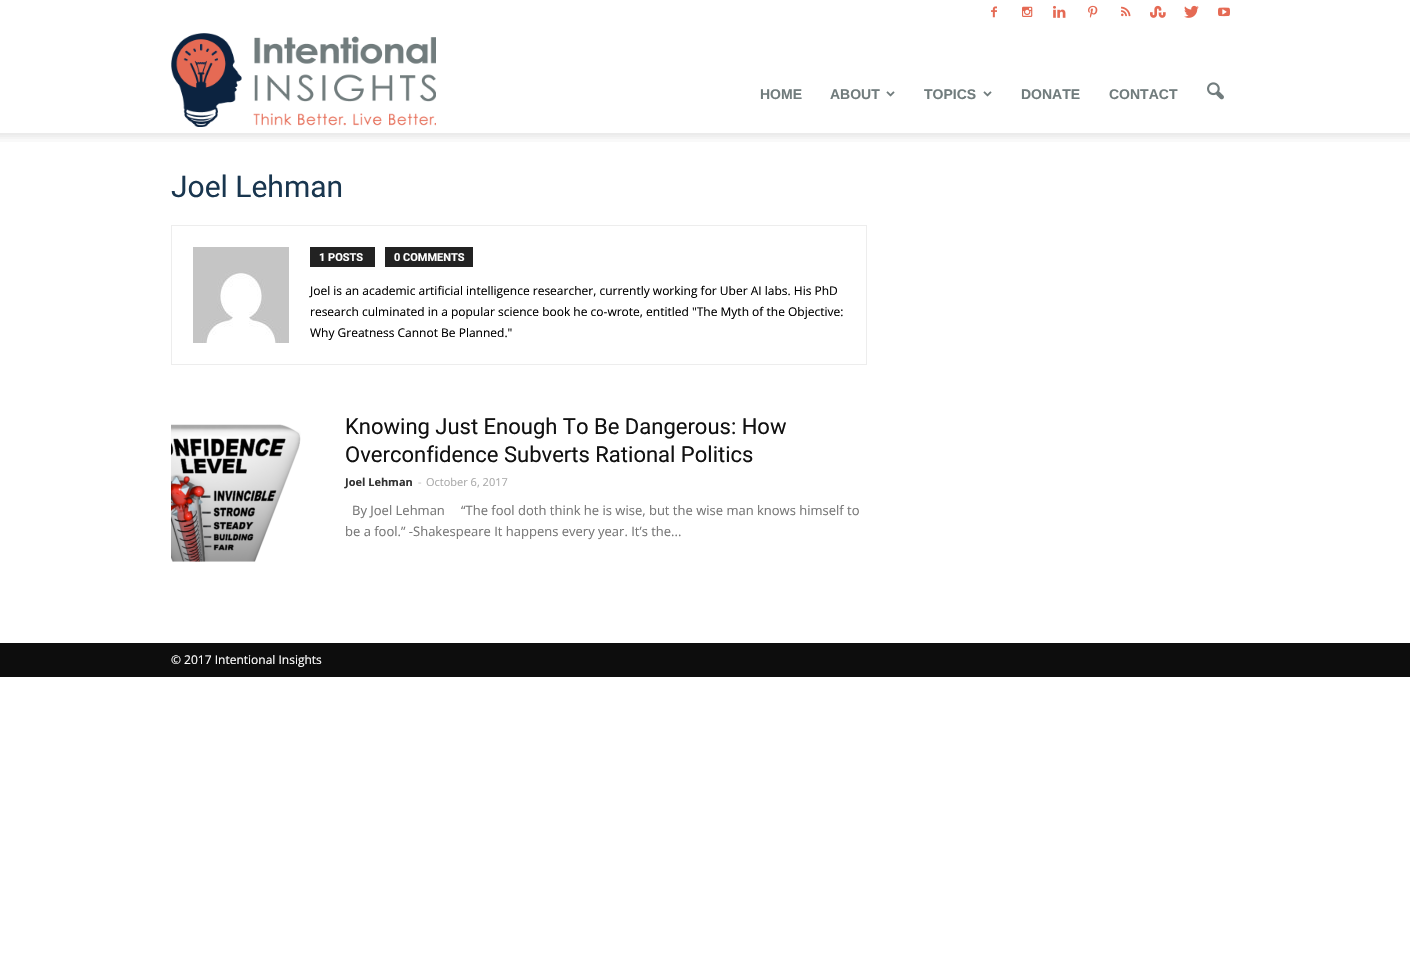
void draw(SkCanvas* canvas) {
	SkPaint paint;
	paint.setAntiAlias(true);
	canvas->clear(0xffffffff);
	canvas->drawImageRect(SkImages::DeferredFromEncodedData(SkData::MakeFromFileName("img1.png")), SkRect::MakeXYWH(991, 6, 6, 12), SkSamplingOptions());
	canvas->drawImageRect(SkImages::DeferredFromEncodedData(SkData::MakeFromFileName("img2.png")), SkRect::MakeXYWH(1022, 6, 11, 11), SkSamplingOptions());
	canvas->drawImageRect(SkImages::DeferredFromEncodedData(SkData::MakeFromFileName("img3.png")), SkRect::MakeXYWH(1053, 5, 13, 13), SkSamplingOptions());
	canvas->drawImageRect(SkImages::DeferredFromEncodedData(SkData::MakeFromFileName("img4.png")), SkRect::MakeXYWH(1088, 5, 10, 13), SkSamplingOptions());
	canvas->drawImageRect(SkImages::DeferredFromEncodedData(SkData::MakeFromFileName("img5.png")), SkRect::MakeXYWH(1121, 6, 10, 11), SkSamplingOptions());
	canvas->drawImageRect(SkImages::DeferredFromEncodedData(SkData::MakeFromFileName("img6.png")), SkRect::MakeXYWH(1150, 5, 16, 13), SkSamplingOptions());
	canvas->drawImageRect(SkImages::DeferredFromEncodedData(SkData::MakeFromFileName("img7.png")), SkRect::MakeXYWH(1184, 5, 15, 13), SkSamplingOptions());
	canvas->drawImageRect(SkImages::DeferredFromEncodedData(SkData::MakeFromFileName("img8.png")), SkRect::MakeXYWH(1218, 7, 12, 10), SkSamplingOptions());
	canvas->drawImageRect(SkImages::DeferredFromEncodedData(SkData::MakeFromFileName("img9.png")), SkRect::MakeXYWH(171, 33, 265, 94), SkSamplingOptions());
	SkFont f1(fontMgr->matchFamilyStyle("Liberation Sans", SkFontStyle::Bold()), 14);
	f1.setSubpixel(true);
	paint.setColor(0xff717c7d);
	canvas->drawString("HOME", 760, 99, f1, paint);
	canvas->drawString("ABOUT", 830, 99, f1, paint);
	canvas->drawImageRect(SkImages::DeferredFromEncodedData(SkData::MakeFromFileName("img10.png")), SkRect::MakeXYWH(886, 91, 9, 6), SkSamplingOptions());
	canvas->drawString("TOPICS", 924, 99, f1, paint);
	canvas->drawImageRect(SkImages::DeferredFromEncodedData(SkData::MakeFromFileName("img10.png")), SkRect::MakeXYWH(983, 91, 9, 6), SkSamplingOptions());
	canvas->drawString("DONATE", 1021, 99, f1, paint);
	canvas->drawString("CONTACT", 1109, 99, f1, paint);
	canvas->drawImageRect(SkImages::DeferredFromEncodedData(SkData::MakeFromFileName("img11.png")), SkRect::MakeXYWH(1207, 82, 17, 18), SkSamplingOptions());
	canvas->drawImageRect(SkImages::DeferredFromEncodedData(SkData::MakeFromFileName("img12.png")), SkRect::MakeXYWH(0, 133, 1410, 9), SkSamplingOptions());
	SkFont f2(fontMgr->matchFamilyStyle("Roboto", SkFontStyle::Normal()), 30);
	f2.setSubpixel(true);
	paint.setColor(0xff19364f);
	canvas->drawString("Joel Lehman", 171, 197, f2, paint);
	paint.setStroke(true);
	paint.setStrokeWidth(1);
	paint.setColor(0xffededed);
	canvas->drawRect(SkRect::MakeXYWH(171.5, 225.5, 695, 139), paint);
	canvas->drawImageRect(SkImages::DeferredFromEncodedData(SkData::MakeFromFileName("img13.png")), SkRect::MakeXYWH(193, 247, 96, 96), SkSamplingOptions());
	paint.setStroke(false);
	paint.setColor(0xff222222);
	canvas->drawRect(SkRect::MakeXYWH(310, 247, 65, 20), paint);
	SkFont f3(fontMgr->matchFamilyStyle("Roboto", SkFontStyle::Bold()), 11);
	f3.setSubpixel(true);
	paint.setColor(0xffffffff);
	canvas->drawString("1 POSTS", 319, 261, f3, paint);
	paint.setColor(0xff222222);
	canvas->drawRect(SkRect::MakeXYWH(385, 247, 88, 20), paint);
	paint.setColor(0xffffffff);
	canvas->drawString("0 COMMENTS", 394, 261, f3, paint);
	SkFont f4(fontMgr->matchFamilyStyle("Open Sans", SkFontStyle::Normal()), 12);
	f4.setSubpixel(true);
	paint.setColor(0xff000000);
	canvas->drawString("Joel is an academic artificial intelligence researcher, currently working for Uber AI labs. His PhD", 310, 295, f4, paint);
	canvas->drawString("research culminated in a popular science book he co-wrote, entitled \"The Myth of the Objective:", 310, 316, f4, paint);
	canvas->drawString("Why Greatness Cannot Be Planned.\"", 310, 337, f4, paint);
	canvas->drawImageRect(SkImages::DeferredFromEncodedData(SkData::MakeFromFileName("img14.png")), SkRect::MakeXYWH(171, 424, 130, 138), SkSamplingOptions());
	SkFont f5(fontMgr->matchFamilyStyle("Roboto", SkFontStyle::Normal()), 22);
	f5.setSubpixel(true);
	paint.setColor(0xff111111);
	canvas->drawString("Knowing Just Enough To Be Dangerous: How", 345, 434, f5, paint);
	canvas->drawString("Overconfidence Subverts Rational Politics", 345, 462, f5, paint);
	SkFont f6(fontMgr->matchFamilyStyle("Open Sans", SkFontStyle::Bold()), 11);
	f6.setSubpixel(true);
	paint.setColor(0xff333333);
	canvas->drawString("Joel Lehman", 345, 486, f6, paint);
	SkFont f7(fontMgr->matchFamilyStyle("Open Sans", SkFontStyle::Normal()), 11);
	f7.setSubpixel(true);
	paint.setColor(0xffcccccc);
	canvas->drawString("-", 418, 486, f7, paint);
	paint.setColor(0xffaaaaaa);
	canvas->drawString("October 6, 2017", 426, 486, f7, paint);
	SkFont f8(fontMgr->matchFamilyStyle("Open Sans", SkFontStyle::Normal()), 13);
	f8.setSubpixel(true);
	paint.setColor(0xff777777);
	canvas->drawString("By Joel Lehman", 352, 515, f8, paint);
	canvas->drawString("“The fool doth think he is wise, but the wise man knows himself to", 461, 515, f8, paint);
	canvas->drawString("be a fool.” -Shakespeare It happens every year. It’s the...", 345, 536, f8, paint);
	paint.setColor(0xff0d0d0d);
	canvas->drawRect(SkRect::MakeXYWH(0, 643, 1410, 34), paint);
	paint.setColor(0xffffffff);
	canvas->drawString("© 2017 Intentional Insights", 171, 664, f4, paint);
}
